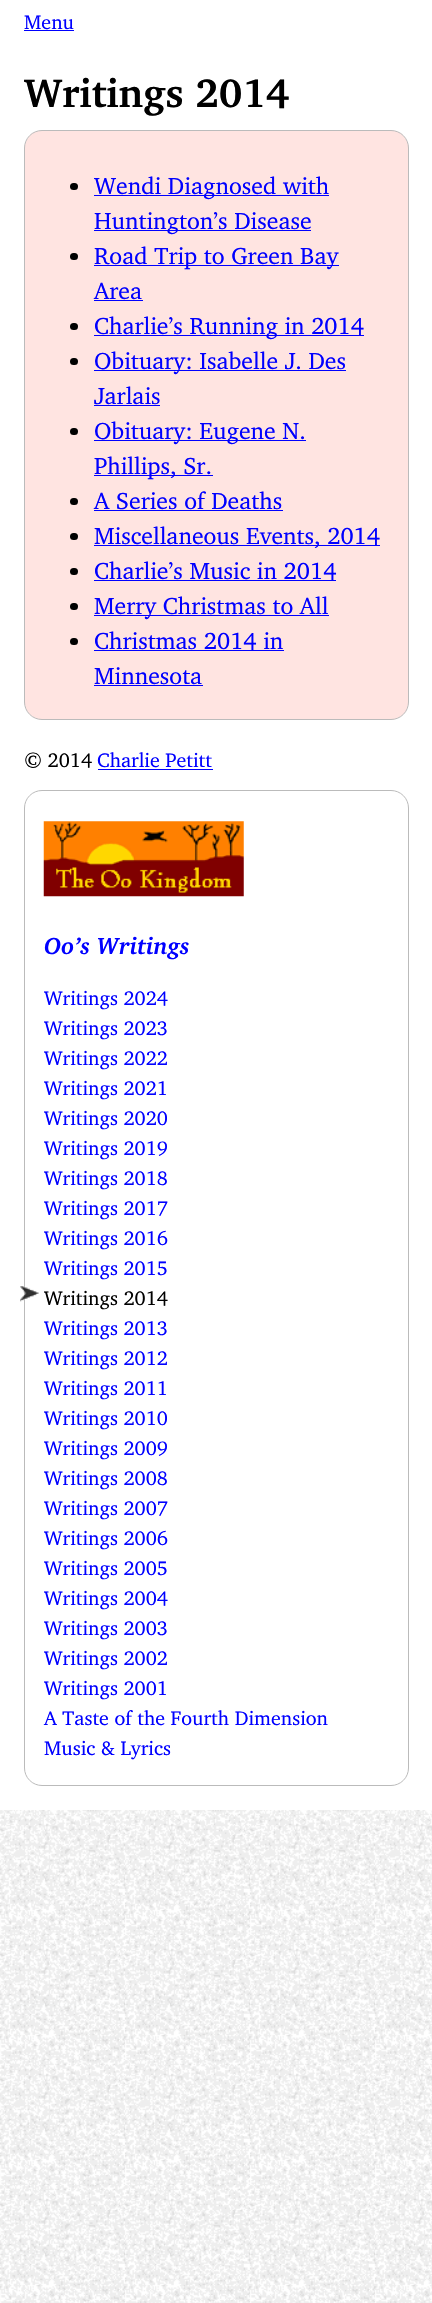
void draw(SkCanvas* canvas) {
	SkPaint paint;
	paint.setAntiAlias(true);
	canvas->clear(0xffffffff);
	canvas->drawImageRect(SkImages::DeferredFromEncodedData(SkData::MakeFromFileName("img1.png")), SkRect::MakeXYWH(0, 1810, 432, 493), SkSamplingOptions());
	SkFont f1(fontMgr->matchFamilyStyle("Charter", SkFontStyle::Normal()), 20);
	f1.setSubpixel(true);
	paint.setColor(0xff0000ff);
	canvas->drawString("Menu", 24, 29, f1, paint);
	canvas->drawRect(SkRect::MakeXYWH(24, 30, 50, 1), paint);
	SkFont f2(fontMgr->matchFamilyStyle("Charter", SkFontStyle::Bold()), 40.5);
	f2.setSubpixel(true);
	paint.setColor(0xff000000);
	canvas->drawString("Writings 2014", 24, 107, f2, paint);
	paint.setColor(0xffffe4e1);
	canvas->drawRoundRect(SkRect::MakeXYWH(24.5, 130.5, 384, 589), 17.5, 17.5, paint);
	paint.setStroke(true);
	paint.setStrokeWidth(1);
	paint.setColor(0xffbbbbbb);
	canvas->drawRoundRect(SkRect::MakeXYWH(24.5, 130.5, 384, 589), 17.5, 17.5, paint);
	paint.setStroke(false);
	paint.setColor(0xff000000);
	canvas->drawRoundRect(SkRect::MakeXYWH(70, 183, 8, 7), 3.5, 3.5, paint);
	paint.setColor(0xff0000ff);
	canvas->drawRect(SkRect::MakeXYWH(94, 195, 235, 1), paint);
	SkFont f3(fontMgr->matchFamilyStyle("Charter", SkFontStyle::Normal()), 23.75);
	f3.setSubpixel(true);
	canvas->drawString("Wendi Diagnosed with", 94, 194, f3, paint);
	canvas->drawRect(SkRect::MakeXYWH(94, 230, 217, 1), paint);
	canvas->drawString("Huntington’s Disease", 94, 229, f3, paint);
	paint.setColor(0xff000000);
	canvas->drawRoundRect(SkRect::MakeXYWH(70, 253, 8, 7), 3.5, 3.5, paint);
	paint.setColor(0xff0000ff);
	canvas->drawRect(SkRect::MakeXYWH(94, 265, 245, 1), paint);
	canvas->drawString("Road Trip to Green Bay", 94, 264, f3, paint);
	canvas->drawString("Area", 94, 299, f3, paint);
	canvas->drawRect(SkRect::MakeXYWH(94, 300, 49, 1), paint);
	paint.setColor(0xff000000);
	canvas->drawRoundRect(SkRect::MakeXYWH(70, 323, 8, 7), 3.5, 3.5, paint);
	paint.setColor(0xff0000ff);
	canvas->drawRect(SkRect::MakeXYWH(94, 335, 270, 1), paint);
	canvas->drawString("Charlie’s Running in 2014", 94, 334, f3, paint);
	paint.setColor(0xff000000);
	canvas->drawRoundRect(SkRect::MakeXYWH(70, 358, 8, 7), 3.5, 3.5, paint);
	paint.setColor(0xff0000ff);
	canvas->drawRect(SkRect::MakeXYWH(94, 370, 252, 1), paint);
	canvas->drawString("Obituary: Isabelle J. Des", 94, 369, f3, paint);
	canvas->drawString("Jarlais", 94, 404, f3, paint);
	canvas->drawRect(SkRect::MakeXYWH(94, 405, 66, 1), paint);
	paint.setColor(0xff000000);
	canvas->drawRoundRect(SkRect::MakeXYWH(70, 428, 8, 7), 3.5, 3.5, paint);
	paint.setColor(0xff0000ff);
	canvas->drawRect(SkRect::MakeXYWH(94, 440, 212, 1), paint);
	canvas->drawString("Obituary: Eugene N.", 94, 439, f3, paint);
	canvas->drawRect(SkRect::MakeXYWH(94, 475, 119, 1), paint);
	canvas->drawString("Phillips, Sr.", 94, 474, f3, paint);
	paint.setColor(0xff000000);
	canvas->drawRoundRect(SkRect::MakeXYWH(70, 498, 8, 7), 3.5, 3.5, paint);
	paint.setColor(0xff0000ff);
	canvas->drawString("A Series of Deaths", 94, 509, f3, paint);
	canvas->drawRect(SkRect::MakeXYWH(94, 510, 189, 1), paint);
	paint.setColor(0xff000000);
	canvas->drawRoundRect(SkRect::MakeXYWH(70, 533, 8, 7), 3.5, 3.5, paint);
	paint.setColor(0xff0000ff);
	canvas->drawRect(SkRect::MakeXYWH(94, 545, 286, 1), paint);
	canvas->drawString("Miscellaneous Events, 2014", 94, 544, f3, paint);
	paint.setColor(0xff000000);
	canvas->drawRoundRect(SkRect::MakeXYWH(70, 568, 8, 7), 3.5, 3.5, paint);
	paint.setColor(0xff0000ff);
	canvas->drawString("Charlie’s Music in 2014", 94, 579, f3, paint);
	canvas->drawRect(SkRect::MakeXYWH(94, 580, 242, 1), paint);
	paint.setColor(0xff000000);
	canvas->drawRoundRect(SkRect::MakeXYWH(70, 603, 8, 7), 3.5, 3.5, paint);
	paint.setColor(0xff0000ff);
	canvas->drawRect(SkRect::MakeXYWH(94, 615, 235, 1), paint);
	canvas->drawString("Merry Christmas to All", 94, 614, f3, paint);
	paint.setColor(0xff000000);
	canvas->drawRoundRect(SkRect::MakeXYWH(70, 638, 8, 7), 3.5, 3.5, paint);
	paint.setColor(0xff0000ff);
	canvas->drawString("Christmas 2014 in", 94, 649, f3, paint);
	canvas->drawRect(SkRect::MakeXYWH(94, 650, 190, 1), paint);
	canvas->drawString("Minnesota", 94, 684, f3, paint);
	canvas->drawRect(SkRect::MakeXYWH(94, 685, 109, 1), paint);
	paint.setColor(0xff000000);
	canvas->drawString("© 2014", 24, 767, f1, paint);
	paint.setColor(0xff0000ff);
	canvas->drawString("Charlie Petitt", 97, 767, f1, paint);
	canvas->drawRect(SkRect::MakeXYWH(98, 769, 115, 1), paint);
	paint.setStroke(true);
	paint.setColor(0xffbbbbbb);
	canvas->drawRoundRect(SkRect::MakeXYWH(24.5, 790.5, 384, 995), 17.5, 17.5, paint);
	canvas->drawImageRect(SkImages::DeferredFromEncodedData(SkData::MakeFromFileName("img2.png")), SkRect::MakeXYWH(43, 821, 201, 76), SkSamplingOptions());
	SkFont f4(fontMgr->matchFamilyStyle("Charter", SkFontStyle::BoldItalic()), 23.75);
	f4.setSubpixel(true);
	paint.setStroke(false);
	paint.setColor(0xff0000ff);
	canvas->drawString("Oo’s Writings", 44, 954, f4, paint);
	canvas->drawString("Writings 2024", 44, 1005, f1, paint);
	canvas->drawString("Writings 2023", 44, 1035, f1, paint);
	canvas->drawString("Writings 2022", 44, 1065, f1, paint);
	canvas->drawString("Writings 2021", 44, 1095, f1, paint);
	canvas->drawString("Writings 2020", 44, 1125, f1, paint);
	canvas->drawString("Writings 2019", 44, 1155, f1, paint);
	canvas->drawString("Writings 2018", 44, 1185, f1, paint);
	canvas->drawString("Writings 2017", 44, 1215, f1, paint);
	canvas->drawString("Writings 2016", 44, 1245, f1, paint);
	canvas->drawString("Writings 2015", 44, 1275, f1, paint);
	canvas->drawImageRect(SkImages::DeferredFromEncodedData(SkData::MakeFromFileName("img3.png")), SkRect::MakeXYWH(20, 1286, 19, 16), SkSamplingOptions());
	paint.setColor(0xff000000);
	canvas->drawString("Writings 2014", 44, 1305, f1, paint);
	paint.setColor(0xff0000ff);
	canvas->drawString("Writings 2013", 44, 1335, f1, paint);
	canvas->drawString("Writings 2012", 44, 1365, f1, paint);
	canvas->drawString("Writings 2011", 44, 1395, f1, paint);
	canvas->drawString("Writings 2010", 44, 1425, f1, paint);
	canvas->drawString("Writings 2009", 44, 1455, f1, paint);
	canvas->drawString("Writings 2008", 44, 1485, f1, paint);
	canvas->drawString("Writings 2007", 44, 1515, f1, paint);
	canvas->drawString("Writings 2006", 44, 1545, f1, paint);
	canvas->drawString("Writings 2005", 44, 1575, f1, paint);
	canvas->drawString("Writings 2004", 44, 1605, f1, paint);
	canvas->drawString("Writings 2003", 44, 1635, f1, paint);
	canvas->drawString("Writings 2002", 44, 1665, f1, paint);
	canvas->drawString("Writings 2001", 44, 1695, f1, paint);
	canvas->drawString("A Taste of the Fourth Dimension", 44, 1725, f1, paint);
	canvas->drawString("Music & Lyrics", 44, 1755, f1, paint);
}
